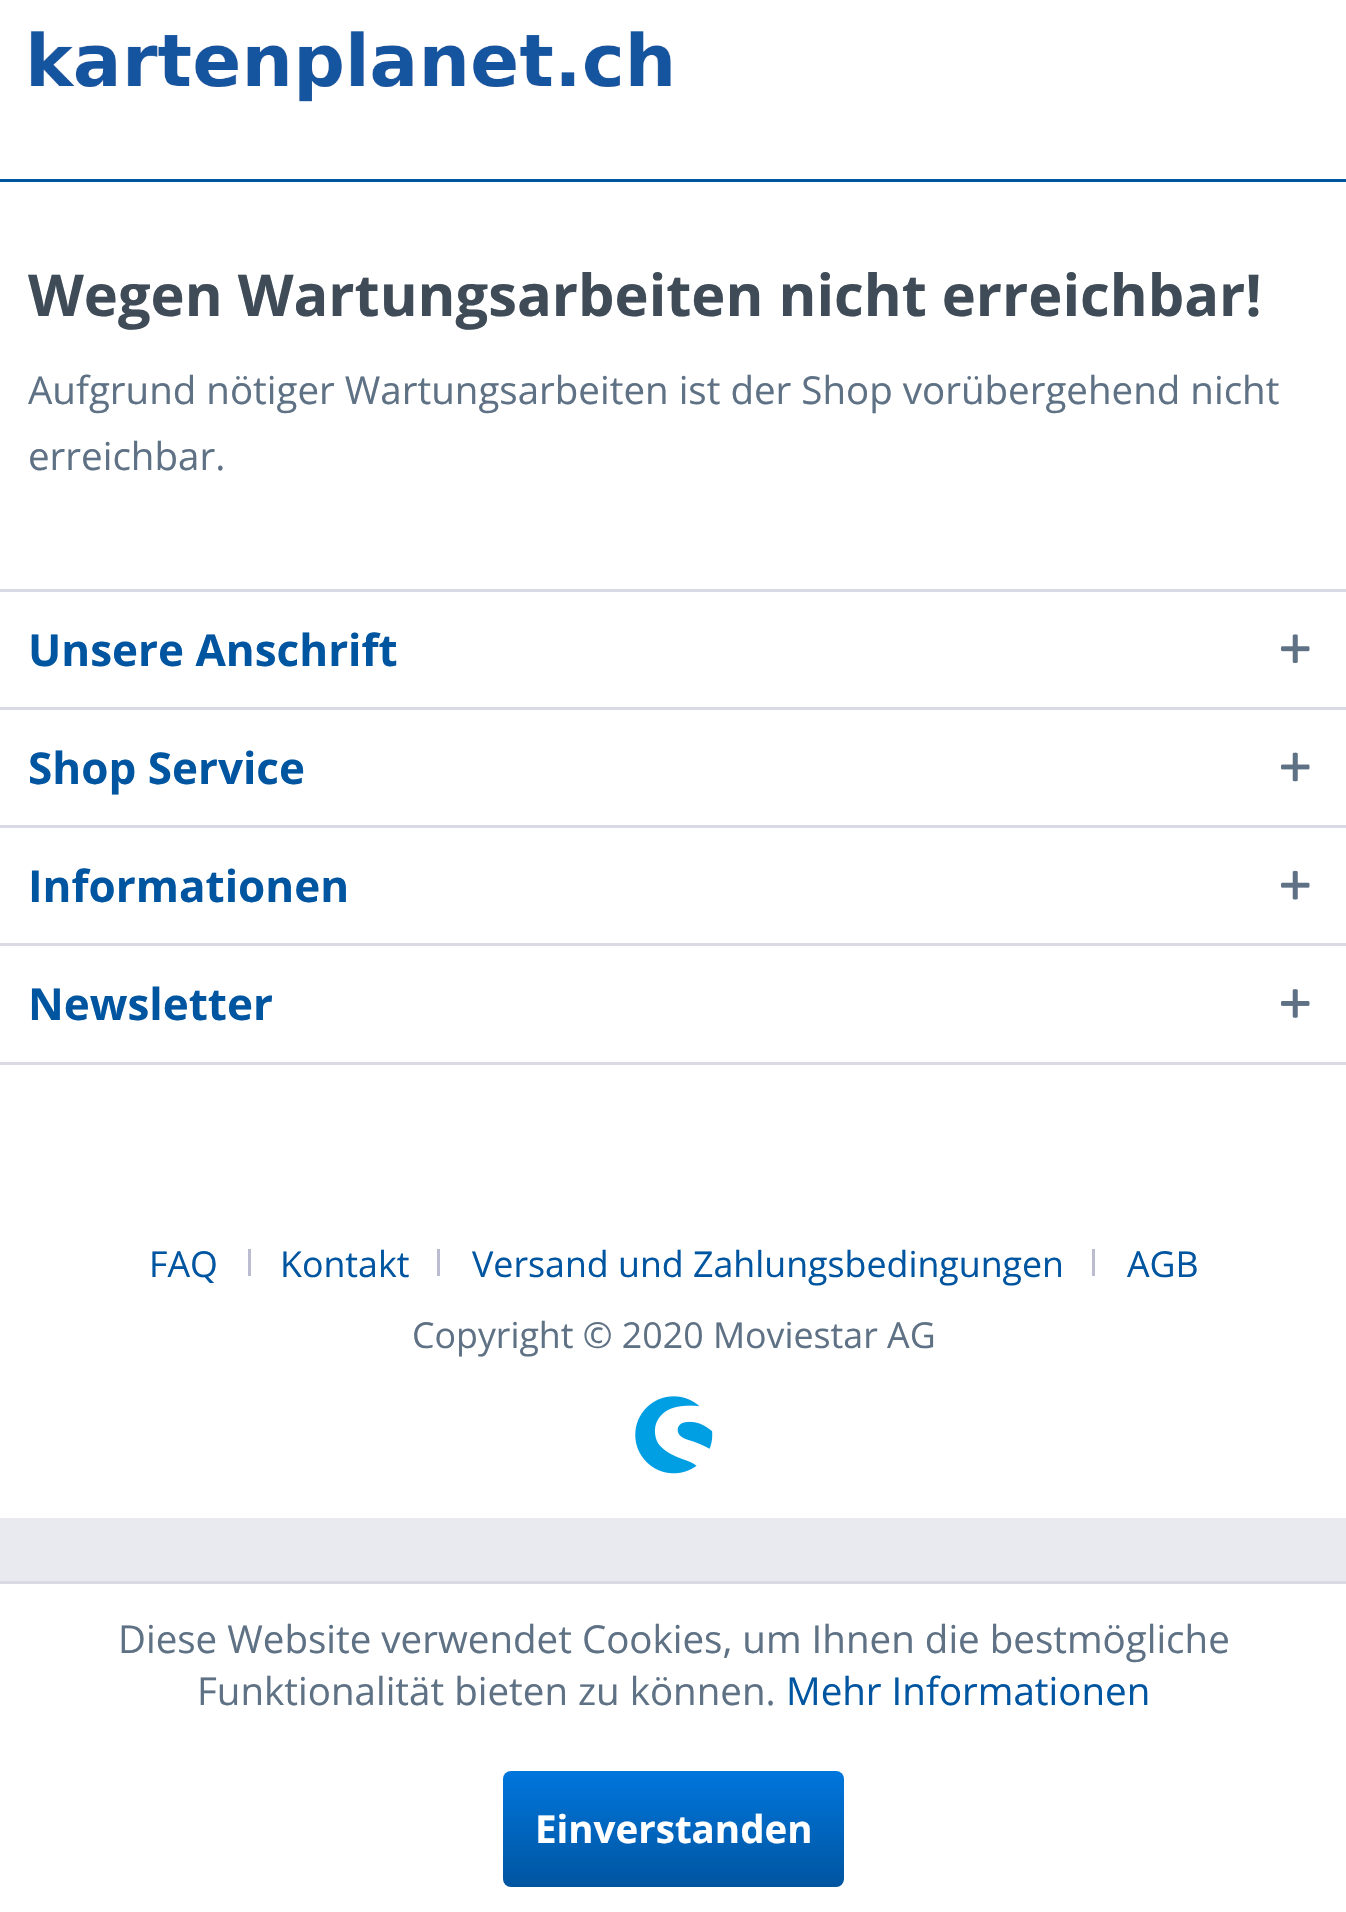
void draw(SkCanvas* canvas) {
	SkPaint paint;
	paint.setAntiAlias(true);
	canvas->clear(0xffe9e9f0);
	paint.setColor(0xffffffff);
	canvas->drawRect(SkRect::MakeXYWH(0, 0, 1346, 179), paint);
	paint.setColor(0xff0055a0);
	canvas->drawRect(SkRect::MakeXYWH(0, 179, 1346, 3), paint);
	canvas->drawImageRect(SkImages::DeferredFromEncodedData(SkData::MakeFromFileName("img1.png")), SkRect::MakeXYWH(30, 31, 641, 71), SkSamplingOptions());
	paint.setColor(0xffffffff);
	canvas->drawRect(SkRect::MakeXYWH(0, 182, 1346, 407), paint);
	SkFont f1(fontMgr->matchFamilyStyle("Open Sans", SkFontStyle::Bold()), 57.75);
	f1.setSubpixel(true);
	paint.setColor(0xff3f4c58);
	canvas->drawString("Wegen Wartungsarbeiten nicht erreichbar!", 28, 316, f1, paint);
	SkFont f2(fontMgr->matchFamilyStyle("Open Sans", SkFontStyle::Normal()), 38.5);
	f2.setSubpixel(true);
	paint.setColor(0xff5f7285);
	canvas->drawString("Aufgrund nötiger Wartungsarbeiten ist der Shop vorübergehend nicht", 28, 404, f2, paint);
	canvas->drawString("erreichbar.", 28, 470, f2, paint);
	paint.setColor(0xffffffff);
	canvas->drawRect(SkRect::MakeXYWH(0, 592, 1346, 926), paint);
	paint.setColor(0xffdadae5);
	canvas->drawRect(SkRect::MakeXYWH(0, 589, 1346, 3), paint);
	SkFont f3(fontMgr->matchFamilyStyle("Open Sans", SkFontStyle::Bold()), 44);
	f3.setSubpixel(true);
	paint.setColor(0xff0055a0);
	canvas->drawString("Unsere Anschrift", 28, 666, f3, paint);
	canvas->drawImageRect(SkImages::DeferredFromEncodedData(SkData::MakeFromFileName("img2.png")), SkRect::MakeXYWH(1280, 634, 30, 30), SkSamplingOptions());
	paint.setColor(0xffdadae5);
	canvas->drawRect(SkRect::MakeXYWH(0, 707, 1346, 3), paint);
	paint.setColor(0xff0055a0);
	canvas->drawString("Shop Service", 28, 784, f3, paint);
	canvas->drawImageRect(SkImages::DeferredFromEncodedData(SkData::MakeFromFileName("img3.png")), SkRect::MakeXYWH(1281, 752, 29, 30), SkSamplingOptions());
	paint.setColor(0xffdadae5);
	canvas->drawRect(SkRect::MakeXYWH(0, 825, 1346, 3), paint);
	paint.setColor(0xff0055a0);
	canvas->drawString("Informationen", 28, 902, f3, paint);
	canvas->drawImageRect(SkImages::DeferredFromEncodedData(SkData::MakeFromFileName("img4.png")), SkRect::MakeXYWH(1280, 870, 30, 30), SkSamplingOptions());
	paint.setColor(0xffdadae5);
	canvas->drawRect(SkRect::MakeXYWH(0, 943, 1346, 3), paint);
	canvas->drawRect(SkRect::MakeXYWH(0, 1062, 1346, 3), paint);
	paint.setColor(0xff0055a0);
	canvas->drawString("Newsletter", 28, 1020, f3, paint);
	canvas->drawImageRect(SkImages::DeferredFromEncodedData(SkData::MakeFromFileName("img5.png")), SkRect::MakeXYWH(1280, 989, 30, 29), SkSamplingOptions());
	SkFont f4(fontMgr->matchFamilyStyle("Open Sans", SkFontStyle::Normal()), 35.75);
	f4.setSubpixel(true);
	canvas->drawString("FAQ", 149, 1277, f4, paint);
	paint.setColor(0xffbcbcd0);
	canvas->drawRect(SkRect::MakeXYWH(248, 1249, 3, 27), paint);
	paint.setColor(0xff0055a0);
	canvas->drawString("Kontakt", 280, 1277, f4, paint);
	paint.setColor(0xffbcbcd0);
	canvas->drawRect(SkRect::MakeXYWH(437, 1249, 3, 27), paint);
	paint.setColor(0xff0055a0);
	canvas->drawString("Versand und Zahlungsbedingungen", 472, 1277, f4, paint);
	paint.setColor(0xffbcbcd0);
	canvas->drawRect(SkRect::MakeXYWH(1092, 1249, 3, 27), paint);
	paint.setColor(0xff0055a0);
	canvas->drawString("AGB", 1127, 1277, f4, paint);
	paint.setColor(0xff5f7285);
	canvas->drawString("Copyright © 2020 Moviestar AG", 412, 1348, f4, paint);
	canvas->drawImageRect(SkImages::DeferredFromEncodedData(SkData::MakeFromFileName("img6.png")), SkRect::MakeXYWH(635, 1396, 78, 78), SkSamplingOptions());
	paint.setColor(0xffffffff);
	canvas->drawRect(SkRect::MakeXYWH(0, 1584, 1346, 328), paint);
	paint.setColor(0xffdadae5);
	canvas->drawRect(SkRect::MakeXYWH(0, 1581, 1346, 3), paint);
	paint.setColor(0xff5f7285);
	canvas->drawString("Diese Website verwendet Cookies, um Ihnen die bestmögliche", 118, 1653, f2, paint);
	canvas->drawString("Funktionalität bieten zu können.", 197, 1705, f2, paint);
	paint.setColor(0xff0055a0);
	canvas->drawString("Mehr Informationen", 786, 1705, f2, paint);
	{
		const SkColor colors[] = {0xff0076dd, 0xff0055a0};
		const float stops[] = {0, 1};
		const SkPoint ends[] = {{674, 1771}, {674, 1887}};
		paint.setShader(SkGradientShader::MakeLinear(ends, colors, stops, 2, SkTileMode::kClamp));
		paint.setAlpha(255);
	}
	canvas->drawRoundRect(SkRect::MakeXYWH(503, 1771, 341, 116), 8, 8, paint);
	SkFont f5(fontMgr->matchFamilyStyle("Open Sans", SkFontStyle::Bold()), 38.5);
	f5.setSubpixel(true);
	paint.setShader(nullptr);
	paint.setColor(0xffffffff);
	canvas->drawString("Einverstanden", 535, 1843, f5, paint);
}
